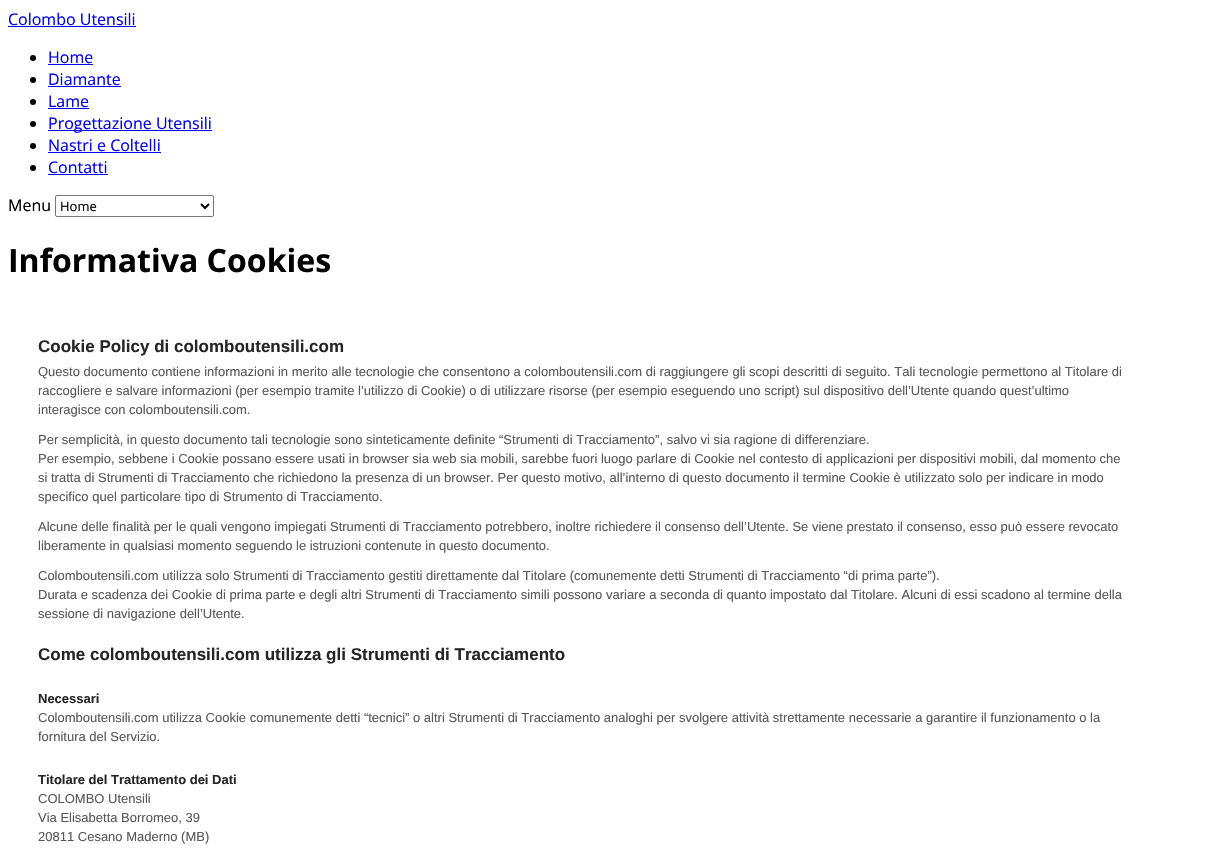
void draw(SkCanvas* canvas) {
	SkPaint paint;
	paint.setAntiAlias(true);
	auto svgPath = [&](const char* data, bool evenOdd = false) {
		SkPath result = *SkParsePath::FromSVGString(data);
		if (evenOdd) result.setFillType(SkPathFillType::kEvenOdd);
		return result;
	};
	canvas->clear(0xffffffff);
	SkFont f1(fontMgr->matchFamilyStyle("Open Sans", SkFontStyle::Normal()), 16);
	f1.setSubpixel(true);
	paint.setColor(0xff0000ee);
	canvas->drawString("Colombo Utensili", 8, 25, f1, paint);
	canvas->drawRect(SkRect::MakeXYWH(8, 26, 128, 1), paint);
	paint.setColor(0xff000000);
	canvas->drawCircle(33, 58, 3, paint);
	paint.setColor(0xff0000ee);
	canvas->drawString("Home", 48, 63, f1, paint);
	canvas->drawRect(SkRect::MakeXYWH(48, 64, 45, 1), paint);
	paint.setColor(0xff000000);
	canvas->drawCircle(33, 80, 3, paint);
	paint.setColor(0xff0000ee);
	canvas->drawString("Diamante", 48, 85, f1, paint);
	canvas->drawRect(SkRect::MakeXYWH(48, 86, 73, 1), paint);
	paint.setColor(0xff000000);
	canvas->drawCircle(33, 102, 3, paint);
	paint.setColor(0xff0000ee);
	canvas->drawString("Lame", 48, 107, f1, paint);
	canvas->drawRect(SkRect::MakeXYWH(48, 108, 41, 1), paint);
	paint.setColor(0xff000000);
	canvas->drawCircle(33, 124, 3, paint);
	paint.setColor(0xff0000ee);
	canvas->drawRect(SkRect::MakeXYWH(48, 130, 164, 1), paint);
	canvas->drawString("Progettazione Utensili", 48, 129, f1, paint);
	paint.setColor(0xff000000);
	canvas->drawCircle(33, 146, 3, paint);
	paint.setColor(0xff0000ee);
	canvas->drawString("Nastri e Coltelli", 48, 151, f1, paint);
	canvas->drawRect(SkRect::MakeXYWH(48, 152, 113, 1), paint);
	paint.setColor(0xff000000);
	canvas->drawCircle(33, 168, 3, paint);
	paint.setColor(0xff0000ee);
	canvas->drawString("Contatti", 48, 173, f1, paint);
	canvas->drawRect(SkRect::MakeXYWH(48, 174, 60, 1), paint);
	paint.setColor(0xff000000);
	canvas->drawString("Menu", 8, 211, f1, paint);
	paint.setStroke(true);
	paint.setStrokeWidth(1);
	paint.setColor(0xff767676);
	canvas->drawRoundRect(SkRect::MakeXYWH(55.5, 195.5, 158, 21), 1.5, 1.5, paint);
	paint.setStrokeWidth(2);
	paint.setColor(0xff000000);
	canvas->drawPath(svgPath("M201 204L205 208L209 204"), paint);
	SkFont f2(fontMgr->matchFamilyStyle("Open Sans", SkFontStyle::Normal()), 13);
	f2.setSubpixel(true);
	paint.setStroke(false);
	canvas->drawString("Home", 60, 211, f2, paint);
	SkFont f3(fontMgr->matchFamilyStyle("Open Sans", SkFontStyle::Bold()), 32);
	f3.setSubpixel(true);
	canvas->drawString("Informativa Cookies", 8, 272, f3, paint);
	SkFont f4(fontMgr->matchFamilyStyle("Liberation Sans", SkFontStyle::Bold()), 17);
	f4.setSubpixel(true);
	paint.setColor(0xff262626);
	canvas->drawString("Cookie Policy di colomboutensili.com", 38, 352, f4, paint);
	SkFont f5(fontMgr->matchFamilyStyle("Liberation Sans", SkFontStyle::Normal()), 13);
	f5.setSubpixel(true);
	paint.setColor(0xff595858);
	canvas->drawString("Questo documento contiene informazioni in merito alle tecnologie che consentono a colomboutensili.com di raggiungere gli scopi descritti di seguito. Tali tecnologie permettono al Titolare di", 38, 376, f5, paint);
	canvas->drawString("raccogliere e salvare informazioni (per esempio tramite l’utilizzo di Cookie) o di utilizzare risorse (per esempio eseguendo uno script) sul dispositivo dell’Utente quando quest’ultimo", 38, 395, f5, paint);
	canvas->drawString("interagisce con colomboutensili.com.", 38, 414, f5, paint);
	canvas->drawString("Per semplicità, in questo documento tali tecnologie sono sinteticamente definite “Strumenti di Tracciamento”, salvo vi sia ragione di differenziare.", 38, 444, f5, paint);
	canvas->drawString("Per esempio, sebbene i Cookie possano essere usati in browser sia web sia mobili, sarebbe fuori luogo parlare di Cookie nel contesto di applicazioni per dispositivi mobili, dal momento che", 38, 463, f5, paint);
	canvas->drawString("si tratta di Strumenti di Tracciamento che richiedono la presenza di un browser. Per questo motivo, all’interno di questo documento il termine Cookie è utilizzato solo per indicare in modo", 38, 482, f5, paint);
	canvas->drawString("specifico quel particolare tipo di Strumento di Tracciamento.", 38, 501, f5, paint);
	canvas->drawString("Alcune delle finalità per le quali vengono impiegati Strumenti di Tracciamento potrebbero, inoltre richiedere il consenso dell’Utente. Se viene prestato il consenso, esso può essere revocato", 38, 531, f5, paint);
	canvas->drawString("liberamente in qualsiasi momento seguendo le istruzioni contenute in questo documento.", 38, 550, f5, paint);
	canvas->drawString("Colomboutensili.com utilizza solo Strumenti di Tracciamento gestiti direttamente dal Titolare (comunemente detti Strumenti di Tracciamento “di prima parte”).", 38, 580, f5, paint);
	canvas->drawString("Durata e scadenza dei Cookie di prima parte e degli altri Strumenti di Tracciamento simili possono variare a seconda di quanto impostato dal Titolare. Alcuni di essi scadono al termine della", 38, 599, f5, paint);
	canvas->drawString("sessione di navigazione dell’Utente.", 38, 618, f5, paint);
	paint.setColor(0xff262626);
	canvas->drawString("Come colomboutensili.com utilizza gli Strumenti di Tracciamento", 38, 660, f4, paint);
	SkFont f6(fontMgr->matchFamilyStyle("Liberation Sans", SkFontStyle::Bold()), 13);
	f6.setSubpixel(true);
	canvas->drawString("Necessari", 38, 703, f6, paint);
	paint.setColor(0xff595858);
	canvas->drawString("Colomboutensili.com utilizza Cookie comunemente detti “tecnici” o altri Strumenti di Tracciamento analoghi per svolgere attività strettamente necessarie a garantire il funzionamento o la", 38, 722, f5, paint);
	canvas->drawString("fornitura del Servizio.", 38, 741, f5, paint);
	paint.setColor(0xff262626);
	canvas->drawString("Titolare del Trattamento dei Dati", 38, 784, f6, paint);
	paint.setColor(0xff595858);
	canvas->drawString("COLOMBO Utensili", 38, 803, f5, paint);
	canvas->drawString("Via Elisabetta Borromeo, 39", 38, 822, f5, paint);
	canvas->drawString("20811 Cesano Maderno (MB)", 38, 841, f5, paint);
}
